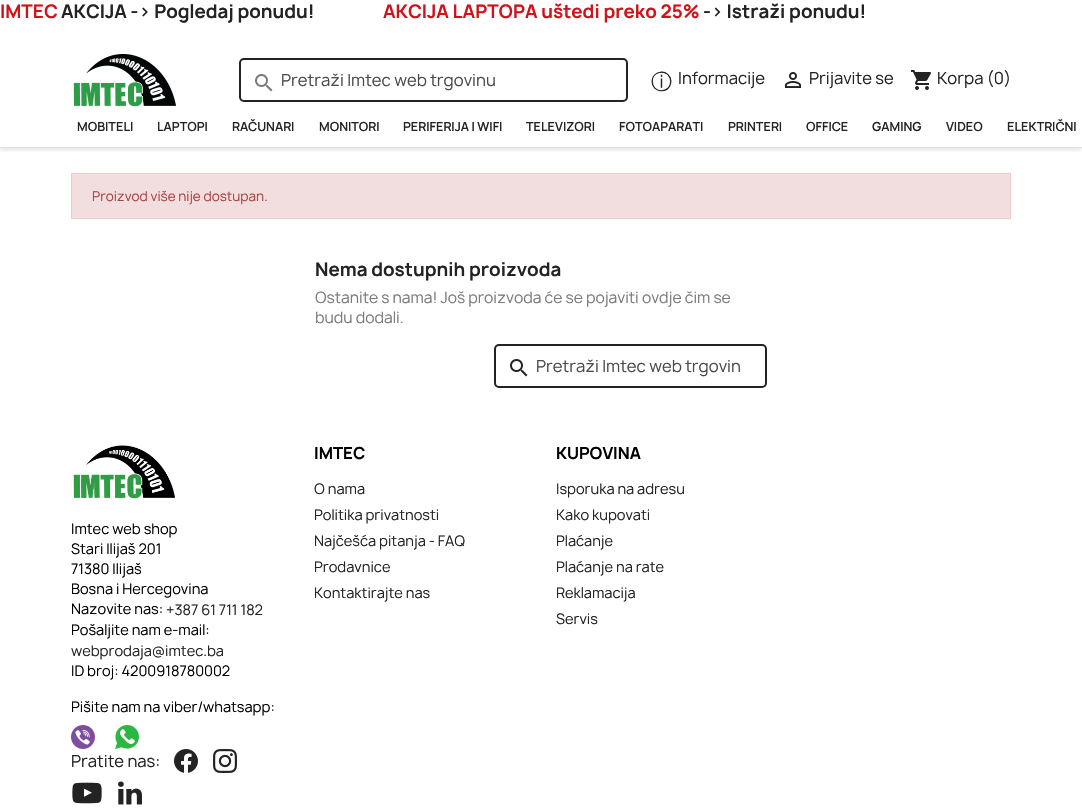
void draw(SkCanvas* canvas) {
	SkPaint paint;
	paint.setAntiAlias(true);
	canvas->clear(0xffffffff);
	canvas->save();
	canvas->clipRect(SkRect::MakeXYWH(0, 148, 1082, 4));
	paint.setColor(0x1c000000);
	paint.setMaskFilter(SkMaskFilter::MakeBlur(kNormal_SkBlurStyle, 2.5));
	canvas->drawRect(SkRect::MakeXYWH(0, 2, 1082, 148), paint);
	paint.setMaskFilter(nullptr);
	canvas->restore();
	paint.setColor(0xffe0e0e0);
	canvas->drawRect(SkRect::MakeXYWH(0, 147, 1082, 1), paint);
	SkFont f1(fontMgr->matchFamilyStyle("Manrope", SkFontStyle::Bold()), 18);
	f1.setSubpixel(true);
	paint.setColor(0xffd0121a);
	canvas->drawString("IMTEC", 0, 18, f1, paint);
	paint.setColor(0xff232323);
	canvas->drawString("AKCIJA -> Pogledaj ponudu!", 61, 18, f1, paint);
	paint.setColor(0xffd0121a);
	canvas->drawString("AKCIJA LAPTOPA uštedi preko 25%", 383, 18, f1, paint);
	paint.setColor(0xff232323);
	canvas->drawString("-> Istraži ponudu!", 703, 18, f1, paint);
	canvas->drawImageRect(SkImages::DeferredFromEncodedData(SkData::MakeFromFileName("img1.png")), SkRect::MakeXYWH(73, 54, 103, 53), SkSamplingOptions());
	paint.setStroke(true);
	paint.setStrokeWidth(2);
	canvas->drawRoundRect(SkRect::MakeXYWH(240, 59, 387, 42), 4, 4, paint);
	canvas->drawImageRect(SkImages::DeferredFromEncodedData(SkData::MakeFromFileName("img2.png")), SkRect::MakeXYWH(255, 74, 18, 18), SkSamplingOptions());
	SkFont f2(fontMgr->matchFamilyStyle("Manrope", SkFontStyle::Normal()), 16);
	f2.setSubpixel(true);
	paint.setStroke(false);
	paint.setColor(0xff4a4a4a);
	canvas->drawString("Pretraži Imtec web trgovinu", 281, 86, f2, paint);
	SkFont f3(fontMgr->matchFamilyStyle("WenQuanYi Zen Hei", SkFontStyle(500, SkFontStyle::kNormal_Width, SkFontStyle::kUpright_Slant)), 21);
	f3.setSubpixel(true);
	paint.setColor(0xff232323);
	canvas->drawString("ⓘ", 651, 89, f3, paint);
	canvas->drawString("Informacije", 678, 84, f2, paint);
	canvas->drawImageRect(SkImages::DeferredFromEncodedData(SkData::MakeFromFileName("img3.png")), SkRect::MakeXYWH(785, 72, 16, 16), SkSamplingOptions());
	canvas->drawString("Prijavite se", 809, 84, f2, paint);
	canvas->drawImageRect(SkImages::DeferredFromEncodedData(SkData::MakeFromFileName("img4.png")), SkRect::MakeXYWH(911, 70, 20, 20), SkSamplingOptions());
	canvas->drawString("Korpa (0)", 937, 84, f2, paint);
	SkFont f4(fontMgr->matchFamilyStyle("Manrope", SkFontStyle(600, SkFontStyle::kNormal_Width, SkFontStyle::kUpright_Slant)), 12);
	f4.setSubpixel(true);
	canvas->drawString("MOBITELI", 77, 131, f4, paint);
	canvas->drawString("LAPTOPI", 157, 131, f4, paint);
	canvas->drawString("RAČUNARI", 232, 131, f4, paint);
	canvas->drawString("MONITORI", 319, 131, f4, paint);
	canvas->drawString("PERIFERIJA I WIFI", 403, 131, f4, paint);
	canvas->drawString("TELEVIZORI", 526, 131, f4, paint);
	canvas->drawString("FOTOAPARATI", 619, 131, f4, paint);
	canvas->drawString("PRINTERI", 728, 131, f4, paint);
	canvas->drawString("OFFICE", 806, 131, f4, paint);
	canvas->drawString("GAMING", 872, 131, f4, paint);
	canvas->drawString("VIDEO", 946, 131, f4, paint);
	canvas->drawString("ELEKTRIČNI", 1007, 131, f4, paint);
	paint.setColor(0xfff2dede);
	canvas->drawRect(SkRect::MakeXYWH(71.5, 173.5, 939, 45), paint);
	paint.setStroke(true);
	paint.setStrokeWidth(1);
	paint.setColor(0xffebcccc);
	canvas->drawRect(SkRect::MakeXYWH(71.5, 173.5, 939, 45), paint);
	SkFont f5(fontMgr->matchFamilyStyle("Manrope", SkFontStyle::Normal()), 13);
	f5.setSubpixel(true);
	paint.setStroke(false);
	paint.setColor(0xffa94442);
	canvas->drawString("Proizvod više nije dostupan.", 92, 201, f5, paint);
	paint.setColor(0xff232323);
	canvas->drawString("Nema dostupnih proizvoda", 315, 276, f1, paint);
	SkFont f6(fontMgr->matchFamilyStyle("Manrope", SkFontStyle::Normal()), 15);
	f6.setSubpixel(true);
	paint.setColor(0xff7a7a7a);
	canvas->drawString("Ostanite s nama! Još proizvoda će se pojaviti ovdje čim se", 315, 303, f6, paint);
	canvas->drawString("budu dodali.", 315, 323, f6, paint);
	paint.setStroke(true);
	paint.setStrokeWidth(2);
	paint.setColor(0xff232323);
	canvas->drawRoundRect(SkRect::MakeXYWH(495, 345, 271, 42), 4, 4, paint);
	canvas->drawImageRect(SkImages::DeferredFromEncodedData(SkData::MakeFromFileName("img5.png")), SkRect::MakeXYWH(510, 359, 18, 18), SkSamplingOptions());
	paint.setStroke(false);
	paint.setColor(0xff4a4a4a);
	canvas->drawString("Pretraži Imtec web trgovin", 536, 372, f2, paint);
	canvas->drawImageRect(SkImages::DeferredFromEncodedData(SkData::MakeFromFileName("img6.png")), SkRect::MakeXYWH(73, 445, 102, 54), SkSamplingOptions());
	SkFont f7(fontMgr->matchFamilyStyle("Manrope", SkFontStyle::Normal()), 14);
	f7.setSubpixel(true);
	paint.setColor(0xff000000);
	canvas->drawString("Imtec web shop", 71, 534, f7, paint);
	canvas->drawString("Stari Ilijaš 201", 71, 554, f7, paint);
	canvas->drawString("71380 Ilijaš", 71, 574, f7, paint);
	canvas->drawString("Bosna i Hercegovina", 71, 594, f7, paint);
	canvas->drawString("Nazovite nas:", 71, 614, f7, paint);
	paint.setColor(0xff232323);
	canvas->drawString("+387 61 711 182", 166, 615, f7, paint);
	paint.setColor(0xff000000);
	canvas->drawString("Pošaljite nam e-mail:", 71, 635, f7, paint);
	paint.setColor(0xff232323);
	canvas->drawString("webprodaja@imtec.ba", 71, 656, f7, paint);
	paint.setColor(0xff000000);
	canvas->drawString("ID broj: 4200918780002", 71, 676, f7, paint);
	canvas->drawString("Pišite nam na viber/whatsapp:", 71, 712, f7, paint);
	canvas->drawImageRect(SkImages::DeferredFromEncodedData(SkData::MakeFromFileName("img7.png")), SkRect::MakeXYWH(71, 725, 24, 24), SkSamplingOptions());
	canvas->drawImageRect(SkImages::DeferredFromEncodedData(SkData::MakeFromFileName("img8.png")), SkRect::MakeXYWH(115, 725, 24, 24), SkSamplingOptions());
	SkFont f8(fontMgr->matchFamilyStyle("Manrope", SkFontStyle::Bold()), 16);
	f8.setSubpixel(true);
	canvas->drawString("IMTEC", 314, 459, f8, paint);
	paint.setColor(0xff232323);
	canvas->drawString("O nama", 314, 494, f7, paint);
	canvas->drawString("Politika privatnosti", 314, 520, f7, paint);
	canvas->drawString("Najčešća pitanja - FAQ", 314, 546, f7, paint);
	canvas->drawString("Prodavnice", 314, 572, f7, paint);
	canvas->drawString("Kontaktirajte nas", 314, 598, f7, paint);
	paint.setColor(0xff000000);
	canvas->drawString("KUPOVINA", 556, 459, f8, paint);
	paint.setColor(0xff232323);
	canvas->drawString("Isporuka na adresu", 556, 494, f7, paint);
	canvas->drawString("Kako kupovati", 556, 520, f7, paint);
	canvas->drawString("Plaćanje", 556, 546, f7, paint);
	canvas->drawString("Plaćanje na rate", 556, 572, f7, paint);
	canvas->drawString("Reklamacija", 556, 598, f7, paint);
	canvas->drawString("Servis", 556, 624, f7, paint);
	canvas->drawString("Pratite nas:", 71, 767, f2, paint);
	canvas->drawImageRect(SkImages::DeferredFromEncodedData(SkData::MakeFromFileName("img9.png")), SkRect::MakeXYWH(174, 749, 24, 24), SkSamplingOptions());
	canvas->drawImageRect(SkImages::DeferredFromEncodedData(SkData::MakeFromFileName("img10.png")), SkRect::MakeXYWH(213, 749, 24, 24), SkSamplingOptions());
	canvas->drawImageRect(SkImages::DeferredFromEncodedData(SkData::MakeFromFileName("img11.png")), SkRect::MakeXYWH(72, 782, 30, 22), SkSamplingOptions());
	canvas->drawImageRect(SkImages::DeferredFromEncodedData(SkData::MakeFromFileName("img12.png")), SkRect::MakeXYWH(118, 781, 24, 24), SkSamplingOptions());
}
